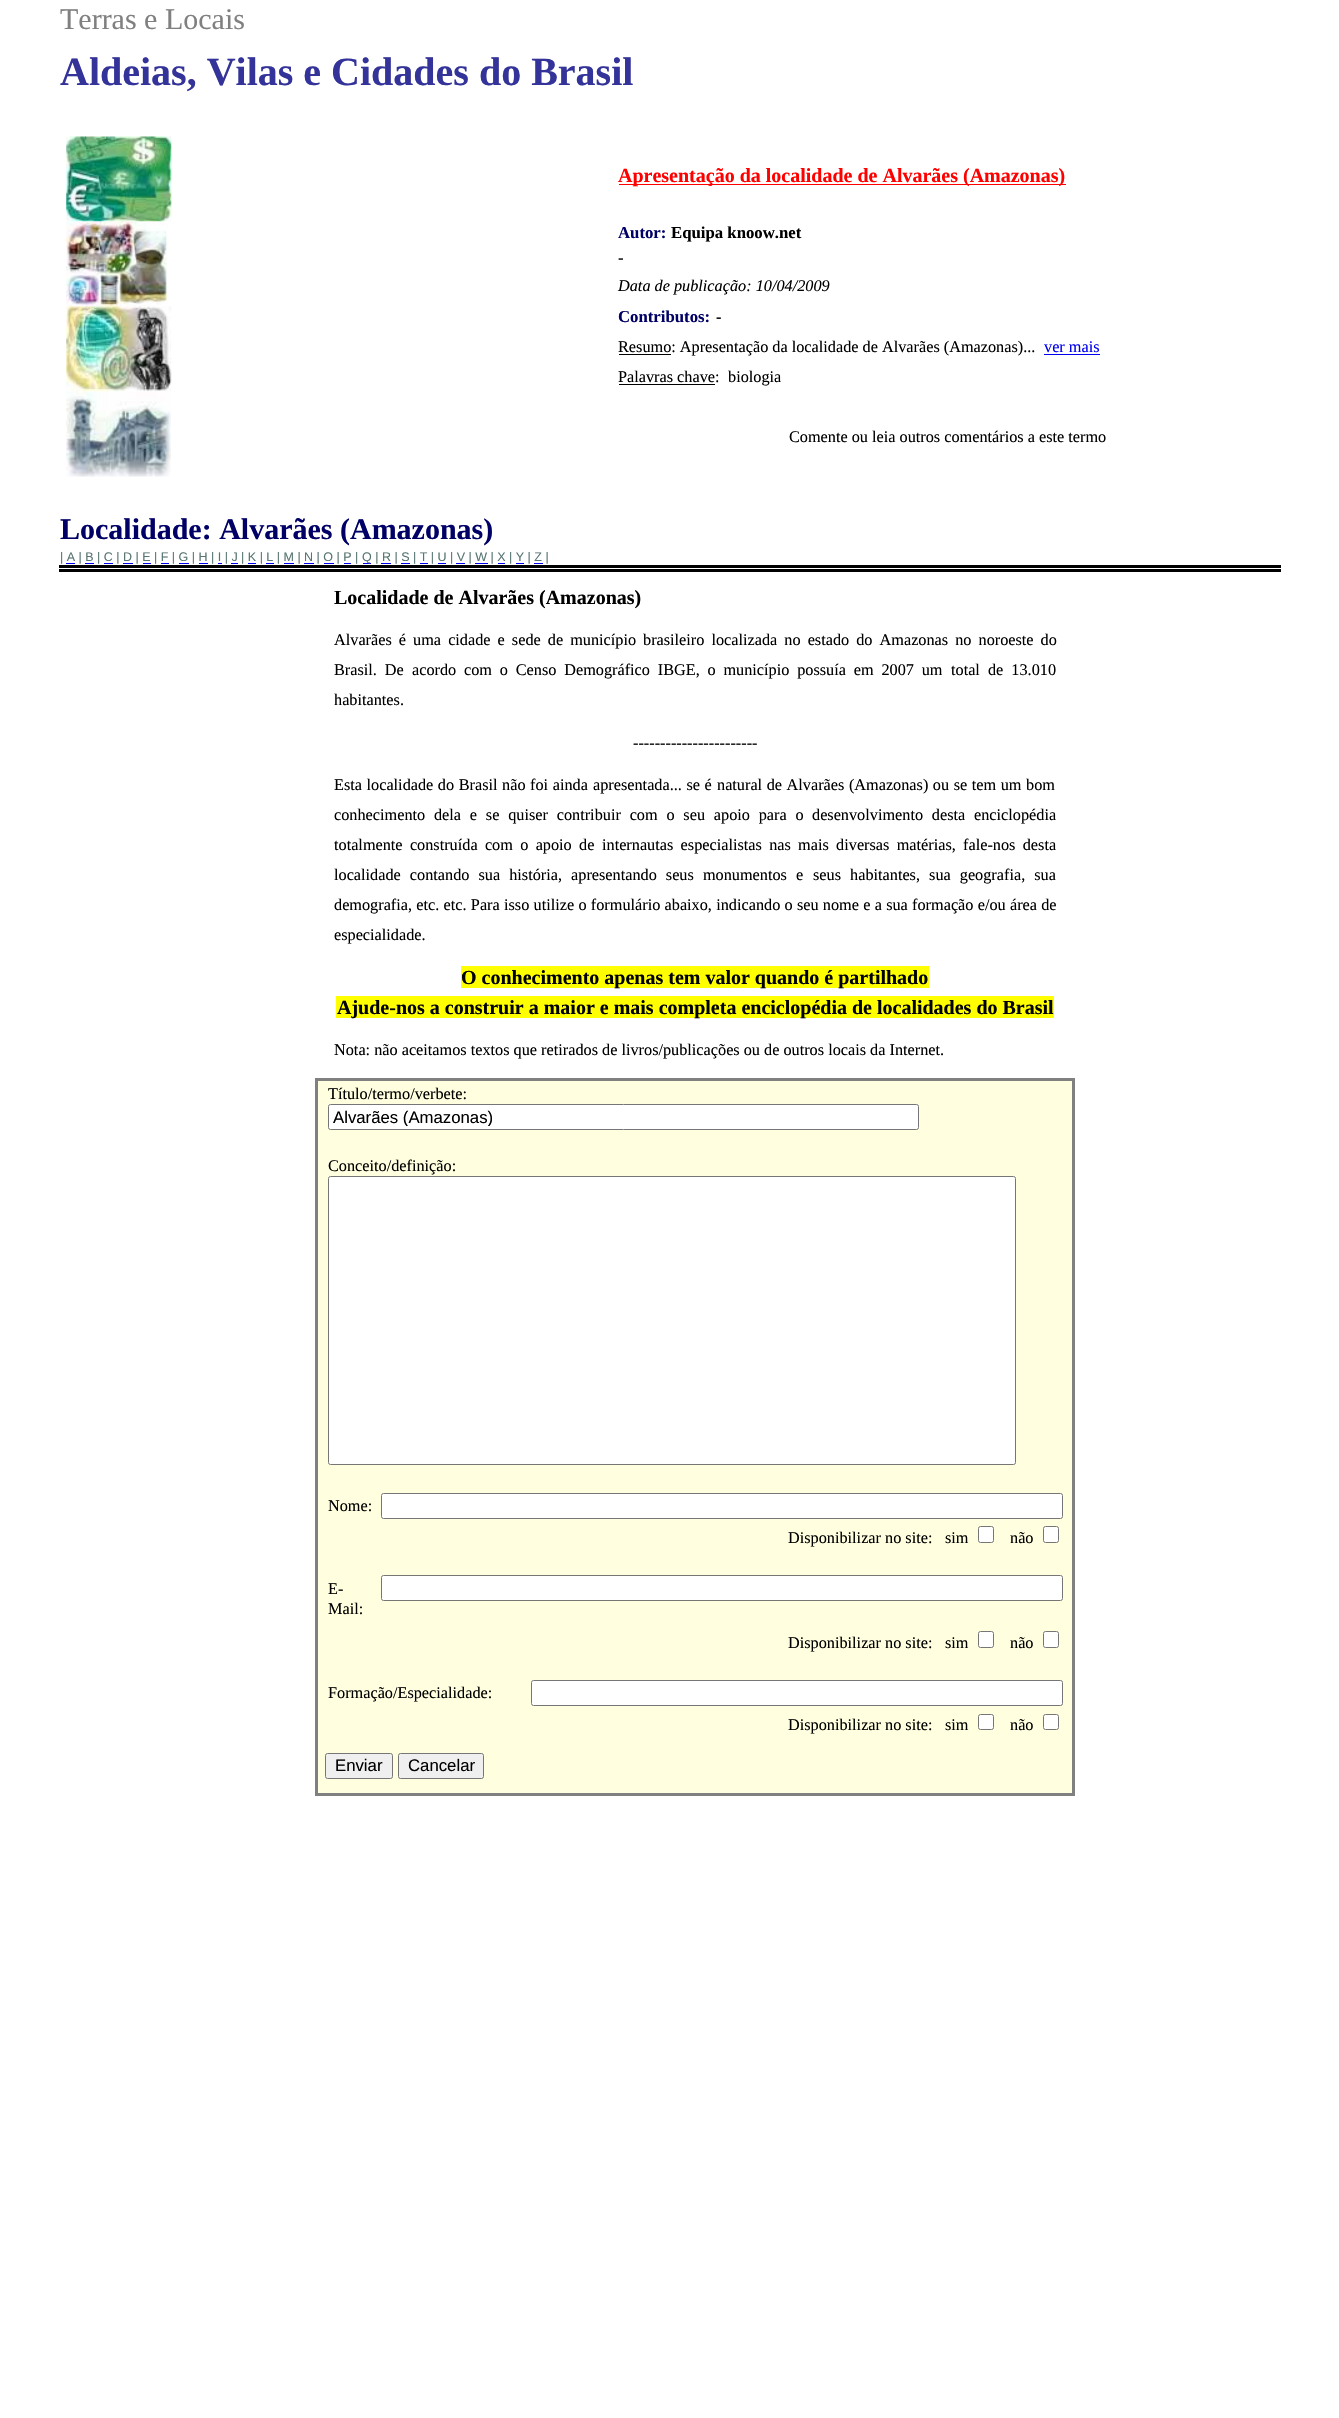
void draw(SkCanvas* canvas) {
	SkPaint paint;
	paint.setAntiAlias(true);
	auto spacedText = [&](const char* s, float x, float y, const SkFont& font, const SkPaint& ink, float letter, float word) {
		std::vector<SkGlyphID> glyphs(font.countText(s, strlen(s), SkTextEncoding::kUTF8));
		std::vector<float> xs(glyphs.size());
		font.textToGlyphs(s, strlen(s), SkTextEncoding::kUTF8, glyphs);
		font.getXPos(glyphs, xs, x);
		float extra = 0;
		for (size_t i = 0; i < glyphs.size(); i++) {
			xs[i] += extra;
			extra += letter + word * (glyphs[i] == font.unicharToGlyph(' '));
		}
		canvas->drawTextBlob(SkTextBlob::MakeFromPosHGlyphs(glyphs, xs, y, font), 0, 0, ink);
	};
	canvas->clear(0xffffffff);
	SkFont f1(fontMgr->matchFamilyStyle("Liberation Serif", SkFontStyle::Normal()), 30);
	f1.setSubpixel(true);
	paint.setColor(0xff808080);
	canvas->drawString("Terras e Locais", 60, 29, f1, paint);
	SkFont f2(fontMgr->matchFamilyStyle("Liberation Serif", SkFontStyle::Bold()), 40);
	f2.setSubpixel(true);
	paint.setColor(0xff333399);
	canvas->drawString("Aldeias, Vilas e Cidades do Brasil", 60, 85, f2, paint);
	canvas->drawImageRect(SkImages::DeferredFromEncodedData(SkData::MakeFromFileName("img1.png")), SkRect::MakeXYWH(66, 136, 106, 86), SkSamplingOptions());
	canvas->drawImageRect(SkImages::DeferredFromEncodedData(SkData::MakeFromFileName("img2.png")), SkRect::MakeXYWH(66, 221, 102, 86), SkSamplingOptions());
	canvas->drawImageRect(SkImages::DeferredFromEncodedData(SkData::MakeFromFileName("img3.png")), SkRect::MakeXYWH(66, 306, 106, 86), SkSamplingOptions());
	canvas->drawImageRect(SkImages::DeferredFromEncodedData(SkData::MakeFromFileName("img4.png")), SkRect::MakeXYWH(66, 391, 105, 86), SkSamplingOptions());
	paint.setColor(0xffff0000);
	canvas->drawRect(SkRect::MakeXYWH(619, 184, 447, 1), paint);
	SkFont f3(fontMgr->matchFamilyStyle("Liberation Serif", SkFontStyle::Bold()), 20);
	f3.setSubpixel(true);
	canvas->drawString("Apresentação da localidade de Alvarães (Amazonas)", 618, 182, f3, paint);
	SkFont f4(fontMgr->matchFamilyStyle("Liberation Serif", SkFontStyle::Bold()), 16.75);
	f4.setSubpixel(true);
	paint.setColor(0xff000066);
	canvas->drawString("Autor:", 618, 238, f4, paint);
	paint.setColor(0xff000000);
	canvas->drawString("Equipa knoow.net", 671, 238, f4, paint);
	SkFont f5(fontMgr->matchFamilyStyle("Liberation Serif", SkFontStyle::Italic()), 16.75);
	f5.setSubpixel(true);
	canvas->drawString("-", 618, 263, f5, paint);
	SkFont f6(fontMgr->matchFamilyStyle("Liberation Serif", SkFontStyle::Italic()), 16.25);
	f6.setSubpixel(true);
	canvas->drawString("Data de publicação: 10/04/2009", 618, 291, f6, paint);
	paint.setColor(0xff000066);
	canvas->drawString("Contributos:", 618, 322, f4, paint);
	SkFont f7(fontMgr->matchFamilyStyle("Liberation Serif", SkFontStyle::Bold()), 16.25);
	f7.setSubpixel(true);
	paint.setColor(0xff000000);
	canvas->drawString("-", 716, 322, f7, paint);
	canvas->drawRect(SkRect::MakeXYWH(619, 354, 52, 1), paint);
	SkFont f8(fontMgr->matchFamilyStyle("Liberation Serif", SkFontStyle::Normal()), 16.25);
	f8.setSubpixel(true);
	canvas->drawString("Resumo: Apresentação da localidade de Alvarães (Amazonas)...", 618, 352, f8, paint);
	paint.setColor(0xff0000ee);
	canvas->drawString("ver mais", 1044, 352, f8, paint);
	canvas->drawRect(SkRect::MakeXYWH(1044, 354, 56, 1), paint);
	paint.setColor(0xff000000);
	canvas->drawString("Palavras chave:", 618, 382, f8, paint);
	canvas->drawRect(SkRect::MakeXYWH(619, 384, 96, 1), paint);
	canvas->drawString("biologia", 728, 382, f8, paint);
	canvas->drawString("Comente ou leia outros comentários a este termo", 789, 442, f8, paint);
	SkFont f9(fontMgr->matchFamilyStyle("Liberation Serif", SkFontStyle::Bold()), 30);
	f9.setSubpixel(true);
	paint.setColor(0xff000066);
	canvas->drawString("Localidade: Alvarães (Amazonas)", 60, 539, f9, paint);
	paint.setColor(0xff000000);
	canvas->drawRect(SkRect::MakeXYWH(59, 565, 1222, 3), paint);
	canvas->drawRect(SkRect::MakeXYWH(59, 569, 1222, 3), paint);
	SkFont f10(fontMgr->matchFamilyStyle("Liberation Sans", SkFontStyle::Normal()), 12.5);
	f10.setSubpixel(true);
	paint.setColor(0xff577572);
	canvas->drawString("| A | B | C | D | E | F | G | H | I | J | K | L | M | N | O | P |", 60, 561, f10, paint);
	paint.setColor(0xff0000ee);
	canvas->drawRect(SkRect::MakeXYWH(66, 563, 9, 1), paint);
	canvas->drawRect(SkRect::MakeXYWH(85, 563, 9, 1), paint);
	canvas->drawRect(SkRect::MakeXYWH(104, 563, 9, 1), paint);
	canvas->drawRect(SkRect::MakeXYWH(123, 563, 10, 1), paint);
	canvas->drawRect(SkRect::MakeXYWH(143, 563, 8, 1), paint);
	canvas->drawRect(SkRect::MakeXYWH(161, 563, 8, 1), paint);
	canvas->drawRect(SkRect::MakeXYWH(179, 563, 10, 1), paint);
	canvas->drawRect(SkRect::MakeXYWH(199, 563, 9, 1), paint);
	canvas->drawRect(SkRect::MakeXYWH(218, 563, 4, 1), paint);
	canvas->drawRect(SkRect::MakeXYWH(231, 563, 7, 1), paint);
	canvas->drawRect(SkRect::MakeXYWH(248, 563, 8, 1), paint);
	canvas->drawRect(SkRect::MakeXYWH(266, 563, 8, 1), paint);
	canvas->drawRect(SkRect::MakeXYWH(284, 563, 10, 1), paint);
	canvas->drawRect(SkRect::MakeXYWH(304, 563, 10, 1), paint);
	canvas->drawRect(SkRect::MakeXYWH(324, 563, 10, 1), paint);
	canvas->drawRect(SkRect::MakeXYWH(344, 563, 7, 1), paint);
	canvas->drawRect(SkRect::MakeXYWH(363, 563, 8, 1), paint);
	paint.setColor(0xff577572);
	canvas->drawString("Q | R | S | T | U | V | W | X | Y | Z |", 362, 561, f10, paint);
	paint.setColor(0xff0000ee);
	canvas->drawRect(SkRect::MakeXYWH(381, 563, 10, 1), paint);
	canvas->drawRect(SkRect::MakeXYWH(401, 563, 9, 1), paint);
	canvas->drawRect(SkRect::MakeXYWH(420, 563, 8, 1), paint);
	canvas->drawRect(SkRect::MakeXYWH(438, 563, 8, 1), paint);
	canvas->drawRect(SkRect::MakeXYWH(456, 563, 9, 1), paint);
	canvas->drawRect(SkRect::MakeXYWH(475, 563, 13, 1), paint);
	canvas->drawRect(SkRect::MakeXYWH(498, 563, 7, 1), paint);
	canvas->drawRect(SkRect::MakeXYWH(516, 563, 8, 1), paint);
	canvas->drawRect(SkRect::MakeXYWH(534, 563, 9, 1), paint);
	paint.setColor(0xff000000);
	canvas->drawString("Localidade de Alvarães (Amazonas)", 334, 604, f3, paint);
	spacedText("Alvarães é uma cidade e sede de município", 334, 645, f8, paint, 0, 3);
	spacedText("brasileiro localizada no estado do Amazonas no noroeste do", 643, 645, f8, paint, 0, 3);
	spacedText("Brasil. De", 334, 675, f8, paint, 0, 3.75);
	spacedText("acordo com o Censo Demográfico IBGE, o município possuía em 2007 um", 412, 675, f8, paint, 0, 3.75);
	spacedText("total de 13.010", 951, 675, f8, paint, 0, 4);
	canvas->drawString("habitantes.", 334, 705, f8, paint);
	canvas->drawString("-----------------------", 633, 748, f8, paint);
	spacedText("Esta localidade do Brasil não foi ainda", 334, 790, f8, paint, 0, 0.5);
	spacedText("apresentada... se é", 593, 790, f8, paint, 0, 0.5);
	spacedText("natural de Alvarães (Amazonas) ou se tem um bom", 717, 790, f8, paint, 0, 0.5);
	spacedText("conhecimento dela e se quiser contribuir com o seu apoio para o", 334, 820, f8, paint, 0, 4.75);
	spacedText("desenvolvimento desta enciclopédia", 812, 820, f8, paint, 0, 4.75);
	spacedText("totalmente construída com o apoio de", 334, 850, f8, paint, 0, 3.25);
	spacedText("internautas especialistas nas mais diversas matérias, fale-nos desta", 602, 850, f8, paint, 0, 3.25);
	spacedText("localidade contando sua história, apresentando seus monumentos e", 334, 880, f8, paint, 0, 5);
	spacedText("seus habitantes, sua geografia, sua", 813, 880, f8, paint, 0, 5);
	spacedText("demografia, etc. etc. Para isso utilize o formulário abaixo, indicando o seu nome e a sua formação e/ou área de", 334, 910, f8, paint, 0, 0.2);
	canvas->drawString("especialidade.", 334, 940, f8, paint);
	paint.setColor(0xffffff00);
	canvas->drawRect(SkRect::MakeXYWH(461, 966, 468, 22), paint);
	paint.setColor(0xff000000);
	canvas->drawString("O conhecimento apenas tem valor quando é partilhado", 461, 984, f3, paint);
	paint.setColor(0xffffff00);
	canvas->drawRect(SkRect::MakeXYWH(336, 996, 718, 22), paint);
	paint.setColor(0xff000000);
	canvas->drawString("Ajude-nos a construir a maior e mais completa enciclopédia de localidades do Brasil", 337, 1014, f3, paint);
	canvas->drawString("Nota: não aceitamos textos que retirados de livros/publicações ou de outros locais da Internet.", 334, 1055, f8, paint);
	paint.setColor(0xffffffdf);
	canvas->drawRect(SkRect::MakeXYWH(316.5, 1079.5, 757, 715), paint);
	paint.setStroke(true);
	paint.setStrokeWidth(3);
	paint.setColor(0xff808080);
	canvas->drawRect(SkRect::MakeXYWH(316.5, 1079.5, 757, 715), paint);
	paint.setStroke(false);
	paint.setColor(0xff000000);
	canvas->drawString("Título/termo/verbete:", 328, 1099, f8, paint);
	paint.setColor(0xffffffff);
	canvas->drawRoundRect(SkRect::MakeXYWH(328.5, 1104.5, 590, 25), 2, 2, paint);
	paint.setStroke(true);
	paint.setStrokeWidth(1);
	paint.setColor(0xff767676);
	canvas->drawRoundRect(SkRect::MakeXYWH(328.5, 1104.5, 590, 25), 2, 2, paint);
	canvas->save();
	canvas->clipRect(SkRect::MakeXYWH(333, 1108, 581, 18));
	SkFont f11(fontMgr->matchFamilyStyle("Liberation Sans", SkFontStyle::Normal()), 16.75);
	f11.setSubpixel(true);
	paint.setStroke(false);
	paint.setColor(0xff000000);
	canvas->drawString("Alvarães (Amazonas)", 333, 1123, f11, paint);
	canvas->restore();
	canvas->drawString("Conceito/definição:", 328, 1171, f8, paint);
	paint.setColor(0xffffffff);
	canvas->drawRoundRect(SkRect::MakeXYWH(328.5, 1176.5, 687, 288), 2, 2, paint);
	paint.setStroke(true);
	paint.setColor(0xff767676);
	canvas->drawRoundRect(SkRect::MakeXYWH(328.5, 1176.5, 687, 288), 2, 2, paint);
	paint.setStroke(false);
	paint.setColor(0xff000000);
	canvas->drawString("Nome:", 328, 1511, f8, paint);
	paint.setColor(0xffffffff);
	canvas->drawRoundRect(SkRect::MakeXYWH(381.5, 1493.5, 681, 25), 2, 2, paint);
	paint.setStroke(true);
	paint.setColor(0xff767676);
	canvas->drawRoundRect(SkRect::MakeXYWH(381.5, 1493.5, 681, 25), 2, 2, paint);
	paint.setStroke(false);
	paint.setColor(0xff000000);
	canvas->drawString("Disponibilizar no site:", 788, 1543, f8, paint);
	canvas->drawString("sim", 945, 1543, f8, paint);
	paint.setColor(0xffffffff);
	canvas->drawRoundRect(SkRect::MakeXYWH(978.5, 1526.5, 15, 16), 2, 2, paint);
	paint.setStroke(true);
	paint.setColor(0xff767676);
	canvas->drawRoundRect(SkRect::MakeXYWH(978.5, 1526.5, 15, 16), 2, 2, paint);
	paint.setStroke(false);
	paint.setColor(0xff000000);
	canvas->drawString("não", 1010, 1543, f8, paint);
	paint.setColor(0xffffffff);
	canvas->drawRoundRect(SkRect::MakeXYWH(1043.5, 1526.5, 15, 16), 2, 2, paint);
	paint.setStroke(true);
	paint.setColor(0xff767676);
	canvas->drawRoundRect(SkRect::MakeXYWH(1043.5, 1526.5, 15, 16), 2, 2, paint);
	paint.setStroke(false);
	paint.setColor(0xff000000);
	canvas->drawString("E-", 328, 1594, f8, paint);
	canvas->drawString("Mail:", 328, 1614, f8, paint);
	paint.setColor(0xffffffff);
	canvas->drawRoundRect(SkRect::MakeXYWH(381.5, 1575.5, 681, 25), 2, 2, paint);
	paint.setStroke(true);
	paint.setColor(0xff767676);
	canvas->drawRoundRect(SkRect::MakeXYWH(381.5, 1575.5, 681, 25), 2, 2, paint);
	paint.setStroke(false);
	paint.setColor(0xff000000);
	canvas->drawString("Disponibilizar no site:", 788, 1648, f8, paint);
	canvas->drawString("sim", 945, 1648, f8, paint);
	paint.setColor(0xffffffff);
	canvas->drawRoundRect(SkRect::MakeXYWH(978.5, 1631.5, 15, 16), 2, 2, paint);
	paint.setStroke(true);
	paint.setColor(0xff767676);
	canvas->drawRoundRect(SkRect::MakeXYWH(978.5, 1631.5, 15, 16), 2, 2, paint);
	paint.setStroke(false);
	paint.setColor(0xff000000);
	canvas->drawString("não", 1010, 1648, f8, paint);
	paint.setColor(0xffffffff);
	canvas->drawRoundRect(SkRect::MakeXYWH(1043.5, 1631.5, 15, 16), 2, 2, paint);
	paint.setStroke(true);
	paint.setColor(0xff767676);
	canvas->drawRoundRect(SkRect::MakeXYWH(1043.5, 1631.5, 15, 16), 2, 2, paint);
	paint.setStroke(false);
	paint.setColor(0xff000000);
	canvas->drawString("Formação/Especialidade:", 328, 1698, f8, paint);
	paint.setColor(0xffffffff);
	canvas->drawRoundRect(SkRect::MakeXYWH(531.5, 1680.5, 531, 25), 2, 2, paint);
	paint.setStroke(true);
	paint.setColor(0xff767676);
	canvas->drawRoundRect(SkRect::MakeXYWH(531.5, 1680.5, 531, 25), 2, 2, paint);
	paint.setStroke(false);
	paint.setColor(0xff000000);
	canvas->drawString("Disponibilizar no site:", 788, 1730, f8, paint);
	canvas->drawString("sim", 945, 1730, f8, paint);
	paint.setColor(0xffffffff);
	canvas->drawRoundRect(SkRect::MakeXYWH(978.5, 1714.5, 15, 15), 2, 2, paint);
	paint.setStroke(true);
	paint.setColor(0xff767676);
	canvas->drawRoundRect(SkRect::MakeXYWH(978.5, 1714.5, 15, 15), 2, 2, paint);
	paint.setStroke(false);
	paint.setColor(0xff000000);
	canvas->drawString("não", 1010, 1730, f8, paint);
	paint.setColor(0xffffffff);
	canvas->drawRoundRect(SkRect::MakeXYWH(1043.5, 1714.5, 15, 15), 2, 2, paint);
	paint.setStroke(true);
	paint.setColor(0xff767676);
	canvas->drawRoundRect(SkRect::MakeXYWH(1043.5, 1714.5, 15, 15), 2, 2, paint);
	paint.setStroke(false);
	paint.setColor(0xffefefef);
	canvas->drawRoundRect(SkRect::MakeXYWH(325.5, 1753.5, 67, 25), 2, 2, paint);
	paint.setStroke(true);
	paint.setColor(0xff767676);
	canvas->drawRoundRect(SkRect::MakeXYWH(325.5, 1753.5, 67, 25), 2, 2, paint);
	paint.setStroke(false);
	paint.setColor(0xff000000);
	canvas->drawString("Enviar", 335, 1771, f11, paint);
	paint.setColor(0xffefefef);
	canvas->drawRoundRect(SkRect::MakeXYWH(398.5, 1753.5, 85, 25), 2, 2, paint);
	paint.setStroke(true);
	paint.setColor(0xff767676);
	canvas->drawRoundRect(SkRect::MakeXYWH(398.5, 1753.5, 85, 25), 2, 2, paint);
	paint.setStroke(false);
	paint.setColor(0xff000000);
	canvas->drawString("Cancelar", 408, 1771, f11, paint);
}
